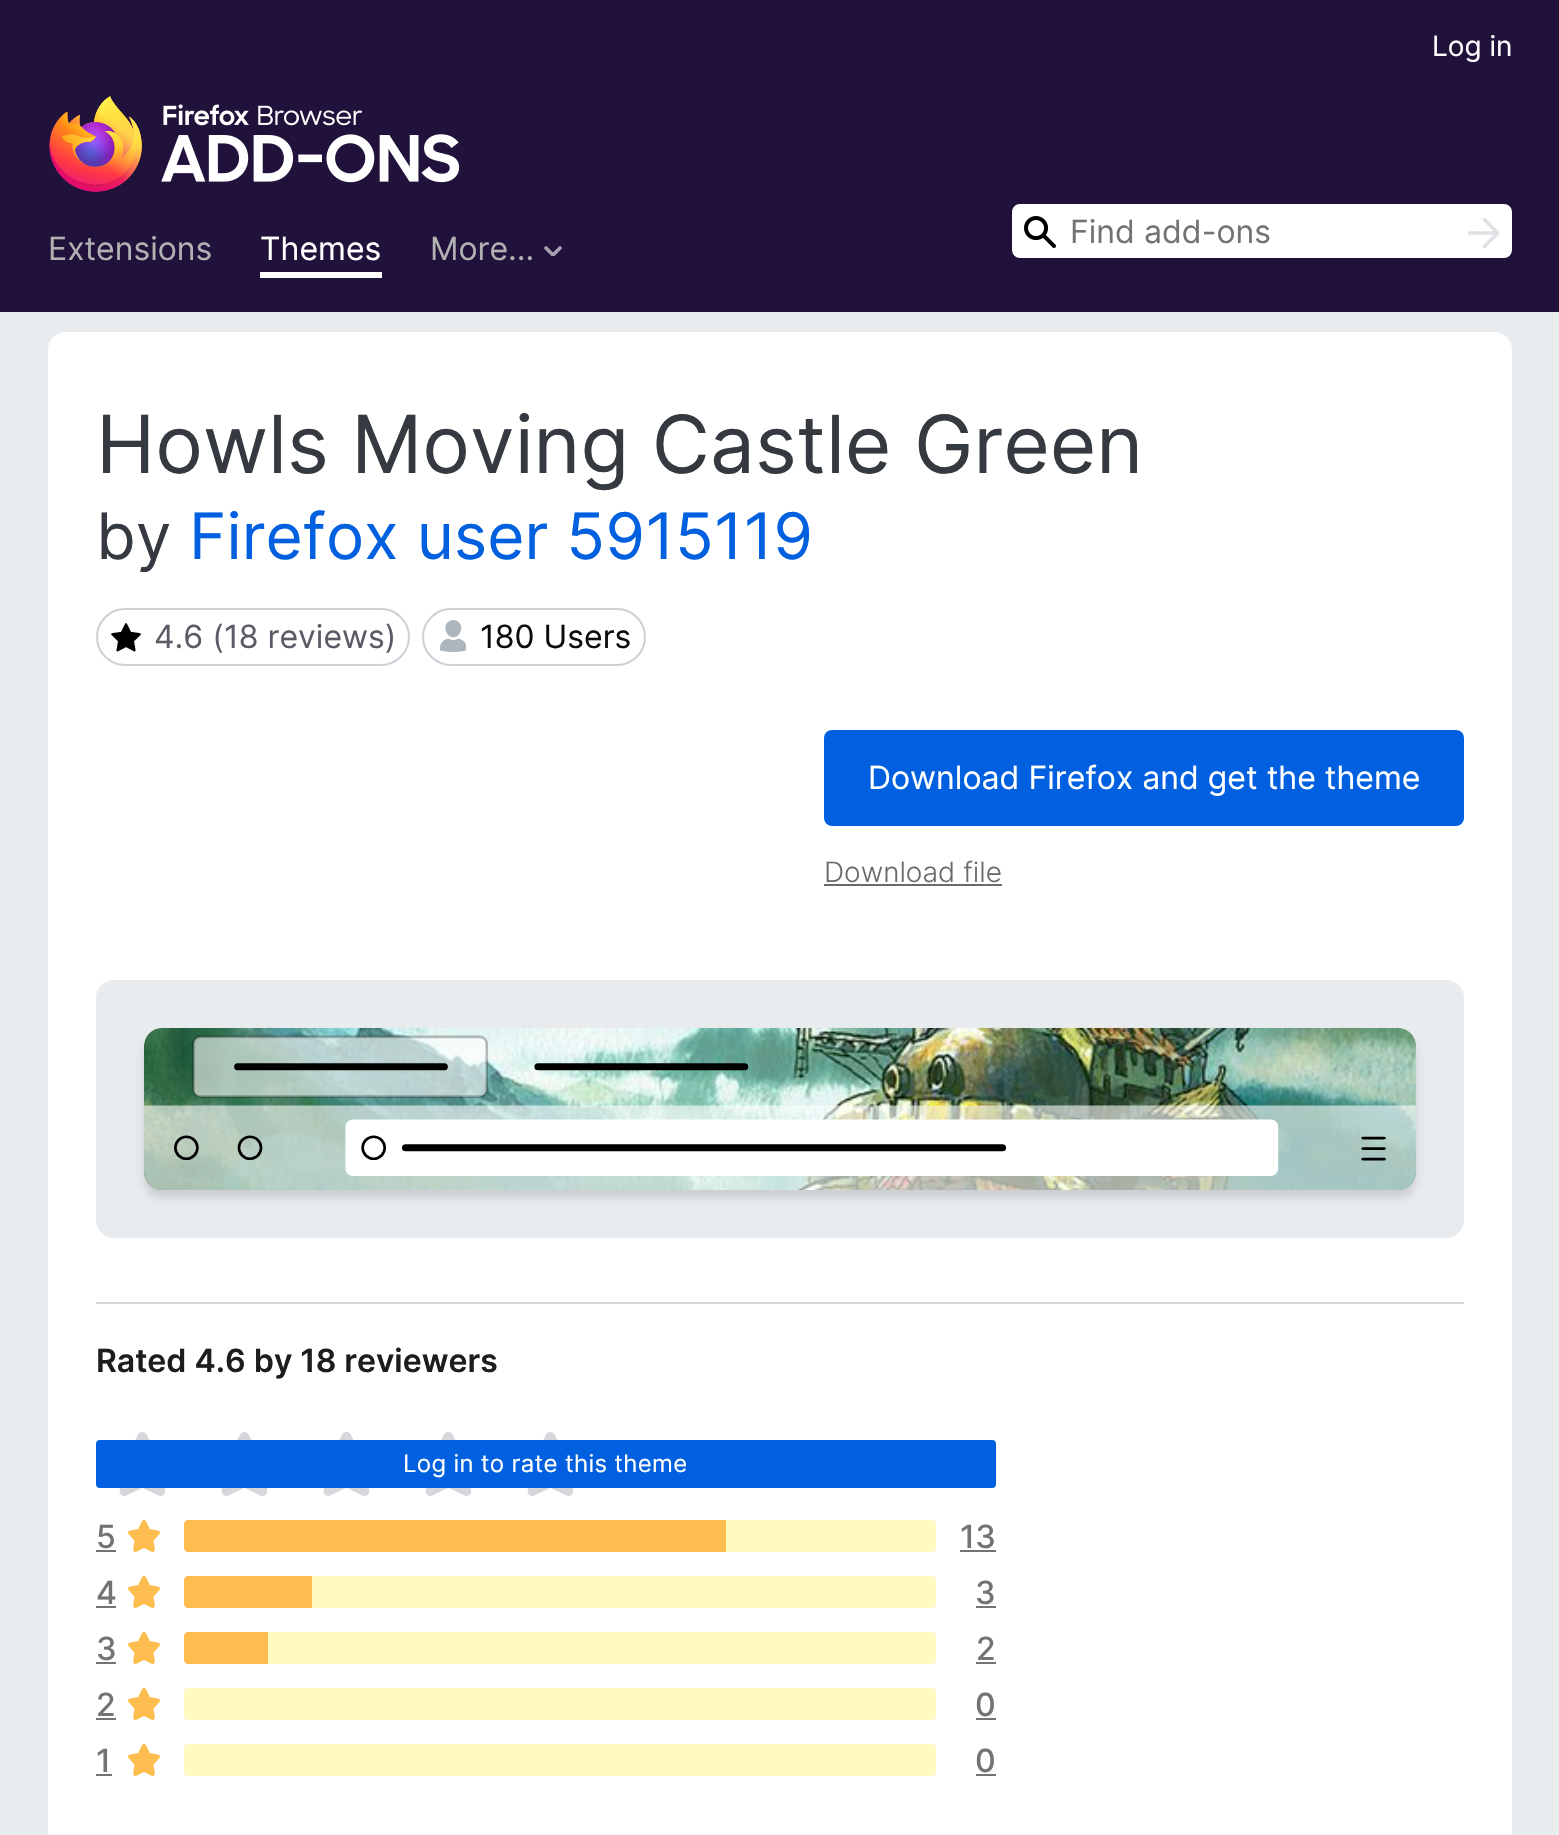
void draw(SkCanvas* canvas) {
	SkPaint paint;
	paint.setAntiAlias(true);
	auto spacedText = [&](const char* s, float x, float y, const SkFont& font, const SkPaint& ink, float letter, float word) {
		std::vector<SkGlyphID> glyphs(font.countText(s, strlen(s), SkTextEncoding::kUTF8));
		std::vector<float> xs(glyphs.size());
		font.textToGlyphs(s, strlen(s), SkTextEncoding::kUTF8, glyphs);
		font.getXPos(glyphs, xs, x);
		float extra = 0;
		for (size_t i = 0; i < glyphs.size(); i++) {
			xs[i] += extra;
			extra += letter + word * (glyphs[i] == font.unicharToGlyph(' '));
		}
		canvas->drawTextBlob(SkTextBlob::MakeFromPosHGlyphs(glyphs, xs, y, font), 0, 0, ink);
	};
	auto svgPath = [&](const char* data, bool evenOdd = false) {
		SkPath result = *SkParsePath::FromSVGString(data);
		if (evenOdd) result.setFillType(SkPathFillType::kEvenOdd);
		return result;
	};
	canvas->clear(0xff20123a);
	SkFont f1(fontMgr->matchFamilyStyle("Inter", SkFontStyle::Normal()), 28);
	f1.setSubpixel(true);
	paint.setColor(0xffffffff);
	canvas->drawString("Log in", 1432, 56, f1, paint);
	canvas->drawImageRect(SkImages::DeferredFromEncodedData(SkData::MakeFromFileName("img1.png")), SkRect::MakeXYWH(49, 96, 411, 96), SkSamplingOptions());
	canvas->drawRoundRect(SkRect::MakeXYWH(1013, 205, 498, 52), 7, 7, paint);
	paint.setStroke(true);
	paint.setStrokeWidth(2);
	canvas->drawRoundRect(SkRect::MakeXYWH(1013, 205, 498, 52), 7, 7, paint);
	canvas->drawImageRect(SkImages::DeferredFromEncodedData(SkData::MakeFromFileName("img2.png")), SkRect::MakeXYWH(1024, 216, 32, 32), SkSamplingOptions());
	SkFont f2(fontMgr->matchFamilyStyle("Inter", SkFontStyle::Normal()), 32);
	f2.setSubpixel(true);
	paint.setStroke(false);
	paint.setColor(0xff737373);
	canvas->drawString("Find add-ons", 1070, 243, f2, paint);
	canvas->save();
	canvas->clipRect(SkRect::MakeXYWH(1468, 218, 32, 32));
	paint.setStroke(true);
	paint.setStrokeWidth(3.4);
	paint.setStrokeCap(SkPaint::kRound_Cap);
	paint.setStrokeJoin(SkPaint::kRound_Join);
	paint.setColor(0xffe1e1e5);
	canvas->drawPath(svgPath("M1469.5 233H1496M1484.5 219.5L1497.5 233L1484.5 246.5"), paint);
	canvas->restore();
	paint.setStroke(false);
	paint.setColor(0xffb1b1b3);
	canvas->drawString("Extensions", 48, 260, f2, paint);
	paint.setColor(0xffffffff);
	canvas->drawString("Themes", 260, 260, f2, paint);
	canvas->drawRect(SkRect::MakeXYWH(260, 272, 122, 6), paint);
	paint.setColor(0xffb1b1b3);
	canvas->drawString("More…", 430, 260, f2, paint);
	canvas->save();
	canvas->clipRect(SkRect::MakeXYWH(544, 246, 18, 10));
	paint.setStroke(true);
	paint.setStrokeWidth(3.6);
	paint.setColor(0xffa6a0b0);
	canvas->drawPath(svgPath("M560 248L553 255L546 248"), paint);
	canvas->restore();
	paint.setStroke(false);
	paint.setColor(0xffe9ecef);
	canvas->drawRect(SkRect::MakeXYWH(0, 312, 1559, 1523), paint);
	paint.setColor(0xffffffff);
	canvas->drawRoundRect(SkRect::MakeXYWH(48, 332, 1464, 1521), 18, 18, paint);
	SkFont f3(fontMgr->matchFamilyStyle("Inter", SkFontStyle::Normal()), 80);
	f3.setSubpixel(true);
	paint.setColor(0xff343a40);
	canvas->drawString("Howls Moving Castle Green", 96, 473, f3, paint);
	SkFont f4(fontMgr->matchFamilyStyle("Inter", SkFontStyle::Normal()), 64);
	f4.setSubpixel(true);
	canvas->drawString("by", 96, 559, f4, paint);
	paint.setColor(0xff0060df);
	canvas->drawString("Firefox user 5915119", 189, 559, f4, paint);
	paint.setStroke(true);
	paint.setStrokeWidth(2);
	paint.setStrokeCap(SkPaint::kButt_Cap);
	paint.setStrokeJoin(SkPaint::kMiter_Join);
	paint.setColor(0xffcfcfd8);
	canvas->drawRoundRect(SkRect::MakeXYWH(97, 609, 312, 56), 28, 28, paint);
	canvas->drawImageRect(SkImages::DeferredFromEncodedData(SkData::MakeFromFileName("img3.png")), SkRect::MakeXYWH(111, 623, 30, 29), SkSamplingOptions());
	paint.setStroke(false);
	paint.setColor(0xff5b5b66);
	canvas->drawString("4.6 (18 reviews)", 154, 648, f2, paint);
	paint.setStroke(true);
	paint.setColor(0xffcfcfd8);
	canvas->drawRoundRect(SkRect::MakeXYWH(423, 609, 222, 56), 28, 28, paint);
	canvas->drawImageRect(SkImages::DeferredFromEncodedData(SkData::MakeFromFileName("img4.png")), SkRect::MakeXYWH(440, 620, 26, 32), SkSamplingOptions());
	paint.setStroke(false);
	paint.setColor(0xff0c0c0d);
	canvas->drawString("180 Users", 480, 648, f2, paint);
	paint.setColor(0xff0060df);
	canvas->drawRoundRect(SkRect::MakeXYWH(824, 730, 640, 96), 8, 8, paint);
	paint.setColor(0xffffffff);
	canvas->drawString("Download Firefox and get the theme", 868, 789, f2, paint);
	SkFont f5(fontMgr->matchFamilyStyle("Inter", SkFontStyle(300, SkFontStyle::kNormal_Width, SkFontStyle::kUpright_Slant)), 28);
	f5.setSubpixel(true);
	paint.setColor(0xff6a6a6a);
	canvas->drawString("Download file", 824, 882, f5, paint);
	canvas->drawRect(SkRect::MakeXYWH(824, 884, 178, 2), paint);
	paint.setColor(0xffe9ecef);
	canvas->drawRoundRect(SkRect::MakeXYWH(96, 980, 1368, 258), 18, 18, paint);
	paint.setColor(0x1f000000);
	paint.setMaskFilter(SkMaskFilter::MakeBlur(kNormal_SkBlurStyle, 4));
	canvas->drawRoundRect(SkRect::MakeXYWH(144, 1036, 1272, 162), 18, 18, paint);
	paint.setMaskFilter(nullptr);
	canvas->drawImageRect(SkImages::DeferredFromEncodedData(SkData::MakeFromFileName("img5.png")), SkRect::MakeXYWH(144, 1028, 1272, 162), SkSamplingOptions());
	paint.setColor(0xffd7d7db);
	canvas->drawRect(SkRect::MakeXYWH(96, 1302, 1368, 2), paint);
	SkFont f6(fontMgr->matchFamilyStyle("Inter", SkFontStyle(600, SkFontStyle::kNormal_Width, SkFontStyle::kUpright_Slant)), 32);
	f6.setSubpixel(true);
	paint.setColor(0xff1d1d1d);
	canvas->drawString("Rated 4.6 by 18 reviewers", 96, 1372, f6, paint);
	canvas->drawImageRect(SkImages::DeferredFromEncodedData(SkData::MakeFromFileName("img6.png")), SkRect::MakeXYWH(119, 1432, 47, 64), SkSamplingOptions());
	canvas->drawImageRect(SkImages::DeferredFromEncodedData(SkData::MakeFromFileName("img6.png")), SkRect::MakeXYWH(221, 1432, 47, 64), SkSamplingOptions());
	canvas->drawImageRect(SkImages::DeferredFromEncodedData(SkData::MakeFromFileName("img6.png")), SkRect::MakeXYWH(323, 1432, 47, 64), SkSamplingOptions());
	canvas->drawImageRect(SkImages::DeferredFromEncodedData(SkData::MakeFromFileName("img6.png")), SkRect::MakeXYWH(425, 1432, 47, 64), SkSamplingOptions());
	canvas->drawImageRect(SkImages::DeferredFromEncodedData(SkData::MakeFromFileName("img6.png")), SkRect::MakeXYWH(527, 1432, 47, 64), SkSamplingOptions());
	paint.setColor(0xff0060df);
	canvas->drawRoundRect(SkRect::MakeXYWH(96, 1440, 900, 48), 4, 4, paint);
	SkFont f7(fontMgr->matchFamilyStyle("Inter", SkFontStyle::Normal()), 24);
	f7.setSubpixel(true);
	paint.setColor(0xffffffff);
	spacedText("Log in to rate this theme", 403, 1472, f7, paint, 0.3, 0);
	SkFont f8(fontMgr->matchFamilyStyle("Inter", SkFontStyle(500, SkFontStyle::kNormal_Width, SkFontStyle::kUpright_Slant)), 32);
	f8.setSubpixel(true);
	paint.setColor(0xff737373);
	canvas->drawString("5", 96, 1548, f8, paint);
	canvas->drawRect(SkRect::MakeXYWH(96, 1550, 20, 2), paint);
	canvas->drawImageRect(SkImages::DeferredFromEncodedData(SkData::MakeFromFileName("img7.png")), SkRect::MakeXYWH(128, 1520, 32, 32), SkSamplingOptions());
	paint.setColor(0xfffffabf);
	canvas->drawRoundRect(SkRect::MakeXYWH(184, 1520, 752, 32), 4, 4, paint);
	paint.setColor(0xffffbd4f);
	canvas->drawPath(svgPath("M188 1520H726V1552H188C186 1552 184 1550 184 1548V1524C184 1522 186 1520 188 1520Z"), paint);
	paint.setColor(0xff737373);
	canvas->drawString("13", 960, 1548, f8, paint);
	canvas->drawRect(SkRect::MakeXYWH(960, 1550, 36, 2), paint);
	canvas->drawString("4", 96, 1604, f8, paint);
	canvas->drawRect(SkRect::MakeXYWH(96, 1606, 20, 2), paint);
	canvas->drawImageRect(SkImages::DeferredFromEncodedData(SkData::MakeFromFileName("img7.png")), SkRect::MakeXYWH(128, 1576, 32, 32), SkSamplingOptions());
	paint.setColor(0xfffffabf);
	canvas->drawRoundRect(SkRect::MakeXYWH(184, 1576, 752, 32), 4, 4, paint);
	paint.setColor(0xffffbd4f);
	canvas->drawPath(svgPath("M188 1576H312V1608H188C186 1608 184 1606 184 1604V1580C184 1578 186 1576 188 1576Z"), paint);
	paint.setColor(0xff737373);
	canvas->drawString("3", 975, 1604, f8, paint);
	canvas->drawRect(SkRect::MakeXYWH(976, 1606, 20, 2), paint);
	canvas->drawString("3", 96, 1660, f8, paint);
	canvas->drawRect(SkRect::MakeXYWH(96, 1662, 20, 2), paint);
	canvas->drawImageRect(SkImages::DeferredFromEncodedData(SkData::MakeFromFileName("img7.png")), SkRect::MakeXYWH(128, 1632, 32, 32), SkSamplingOptions());
	paint.setColor(0xfffffabf);
	canvas->drawRoundRect(SkRect::MakeXYWH(184, 1632, 752, 32), 4, 4, paint);
	paint.setColor(0xffffbd4f);
	canvas->drawPath(svgPath("M188 1632H268V1664H188C186 1664 184 1662 184 1660V1636C184 1634 186 1632 188 1632Z"), paint);
	paint.setColor(0xff737373);
	canvas->drawString("2", 976, 1660, f8, paint);
	canvas->drawRect(SkRect::MakeXYWH(976, 1662, 20, 2), paint);
	canvas->drawString("2", 96, 1716, f8, paint);
	canvas->drawRect(SkRect::MakeXYWH(96, 1718, 20, 2), paint);
	canvas->drawImageRect(SkImages::DeferredFromEncodedData(SkData::MakeFromFileName("img7.png")), SkRect::MakeXYWH(128, 1688, 32, 32), SkSamplingOptions());
	paint.setColor(0xfffffabf);
	canvas->drawRoundRect(SkRect::MakeXYWH(184, 1688, 752, 32), 4, 4, paint);
	paint.setColor(0xff737373);
	canvas->drawString("0", 975, 1716, f8, paint);
	canvas->drawRect(SkRect::MakeXYWH(976, 1718, 20, 2), paint);
	canvas->drawString("1", 96, 1772, f8, paint);
	canvas->drawRect(SkRect::MakeXYWH(96, 1774, 16, 2), paint);
	canvas->drawImageRect(SkImages::DeferredFromEncodedData(SkData::MakeFromFileName("img7.png")), SkRect::MakeXYWH(128, 1744, 32, 32), SkSamplingOptions());
	paint.setColor(0xfffffabf);
	canvas->drawRoundRect(SkRect::MakeXYWH(184, 1744, 752, 32), 4, 4, paint);
	paint.setColor(0xff737373);
	canvas->drawString("0", 975, 1772, f8, paint);
	canvas->drawRect(SkRect::MakeXYWH(976, 1774, 20, 2), paint);
}
